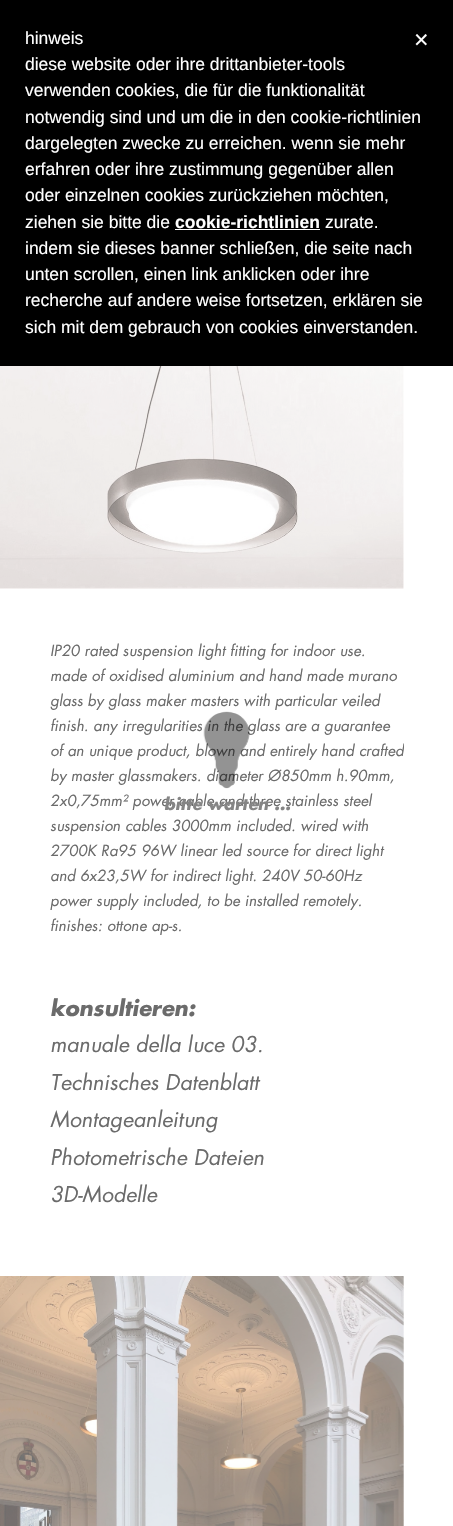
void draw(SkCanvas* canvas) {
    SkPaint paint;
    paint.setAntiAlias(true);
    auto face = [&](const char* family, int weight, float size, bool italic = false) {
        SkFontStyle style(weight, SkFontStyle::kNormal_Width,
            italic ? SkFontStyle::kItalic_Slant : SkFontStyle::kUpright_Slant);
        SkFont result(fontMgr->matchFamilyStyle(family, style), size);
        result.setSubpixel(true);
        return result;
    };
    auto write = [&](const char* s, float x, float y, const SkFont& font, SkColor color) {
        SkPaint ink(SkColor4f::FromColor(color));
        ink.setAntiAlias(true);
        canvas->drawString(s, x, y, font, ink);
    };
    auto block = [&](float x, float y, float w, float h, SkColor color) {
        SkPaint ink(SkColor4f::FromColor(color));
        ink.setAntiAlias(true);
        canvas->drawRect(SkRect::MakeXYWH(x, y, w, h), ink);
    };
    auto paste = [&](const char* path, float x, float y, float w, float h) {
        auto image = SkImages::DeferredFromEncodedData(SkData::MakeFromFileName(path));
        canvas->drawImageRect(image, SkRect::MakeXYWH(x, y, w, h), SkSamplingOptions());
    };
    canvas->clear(SK_ColorWHITE);
    block(0, 0, 453, 366, SK_ColorBLACK);
    auto kFont1 = face("Liberation Sans", 400, 17.5f);
    write("hinweis", 25, 44, kFont1, SK_ColorWHITE);
    write("diese website oder ihre drittanbieter-tools", 25, 70, kFont1, SK_ColorWHITE);
    write("verwenden cookies, die für die funktionalität", 25, 96, kFont1, SK_ColorWHITE);
    write("notwendig sind und um die in den cookie-richtlinien", 25, 123, kFont1, SK_ColorWHITE);
    write("dargelegten zwecke zu erreichen. wenn sie mehr", 25, 149, kFont1, SK_ColorWHITE);
    write("erfahren oder ihre zustimmung gegenüber allen", 25, 175, kFont1, SK_ColorWHITE);
    write("oder einzelnen cookies zurückziehen möchten,", 25, 201, kFont1, SK_ColorWHITE);
    write("ziehen sie bitte die", 25, 228, kFont1, SK_ColorWHITE);
    auto kFont2 = face("Liberation Sans", 700, 17.5f);
    write("cookie-richtlinien", 175, 228, kFont2, SK_ColorWHITE);
    block(175, 229, 145, 1, SK_ColorWHITE);
    write("zurate.", 325, 228, kFont1, SK_ColorWHITE);
    write("indem sie dieses banner schließen, die seite nach", 25, 254, kFont1, SK_ColorWHITE);
    write("unten scrollen, einen link anklicken oder ihre", 25, 280, kFont1, SK_ColorWHITE);
    write("recherche auf andere weise fortsetzen, erklären sie", 25, 306, kFont1, SK_ColorWHITE);
    write("sich mit dem gebrauch von cookies einverstanden.", 25, 333, kFont1, SK_ColorWHITE);
    auto kFont3 = face("Liberation Sans", 400, 25);
    write("×", 414, 48, kFont3, SK_ColorWHITE);
    paste("pic1.png", 0, 366, 404, 223);
    auto kFont4 = face("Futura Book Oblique", 400, 15);
    write("IP20 rated suspension light fitting for indoor use.", 50, 656, kFont4, SkColorSetRGB(107, 107, 107));
    write("made of oxidised aluminium and hand made murano", 50, 681, kFont4, SkColorSetRGB(107, 107, 107));
    write("glass by glass maker masters with particular veiled", 50, 706, kFont4, SkColorSetRGB(107, 107, 107));
    write("finish. any irregularities in the glass are a guarantee", 50, 731, kFont4, SkColorSetRGB(107, 107, 107));
    canvas->save();
    canvas->clipRect(SkRect::MakeXYWH(0, 639, 404, 300));
    write("of an unique product, blown and entirely hand crafted", 50, 756, kFont4, SkColorSetRGB(107, 107, 107));
    canvas->restore();
    write("by master glassmakers. diameter Ø850mm h.90mm,", 50, 781, kFont4, SkColorSetRGB(107, 107, 107));
    write("2x0,75mm² power cable and three stainless steel", 50, 806, kFont4, SkColorSetRGB(107, 107, 107));
    write("suspension cables 3000mm included. wired with", 50, 831, kFont4, SkColorSetRGB(107, 107, 107));
    write("2700K Ra95 96W linear led source for direct light", 50, 856, kFont4, SkColorSetRGB(107, 107, 107));
    write("and 6x23,5W for indirect light. 240V 50-60Hz", 50, 881, kFont4, SkColorSetRGB(107, 107, 107));
    write("power supply included, to be installed remotely.", 50, 906, kFont4, SkColorSetRGB(107, 107, 107));
    write("finishes: ottone ap-s.", 50, 931, kFont4, SkColorSetRGB(107, 107, 107));
    auto kFont5 = face("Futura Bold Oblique", 700, 21.25f);
    write("konsultieren:", 50, 1016, kFont5, SkColorSetRGB(107, 107, 107));
    auto kFont6 = face("Futura Book Oblique", 400, 21.25f);
    write("manuale della luce 03.", 50, 1052, kFont6, SkColorSetRGB(107, 107, 107));
    write("Technisches Datenblatt", 50, 1090, kFont6, SkColorSetRGB(107, 107, 107));
    write("Montageanleitung", 50, 1127, kFont6, SkColorSetRGB(107, 107, 107));
    write("Photometrische Dateien", 50, 1165, kFont6, SkColorSetRGB(107, 107, 107));
    write("3D-Modelle", 50, 1202, kFont6, SkColorSetRGB(107, 107, 107));
    paste("pic2.png", 0, 1276, 404, 250);
    paste("pic3.png", 203, 711, 47, 78);
    auto kFont7 = face("Futura Bold Oblique", 700, 16.25f);
    write("bitte warten ...", 164, 810, kFont7, SkColorSetRGB(133, 133, 133));
}
